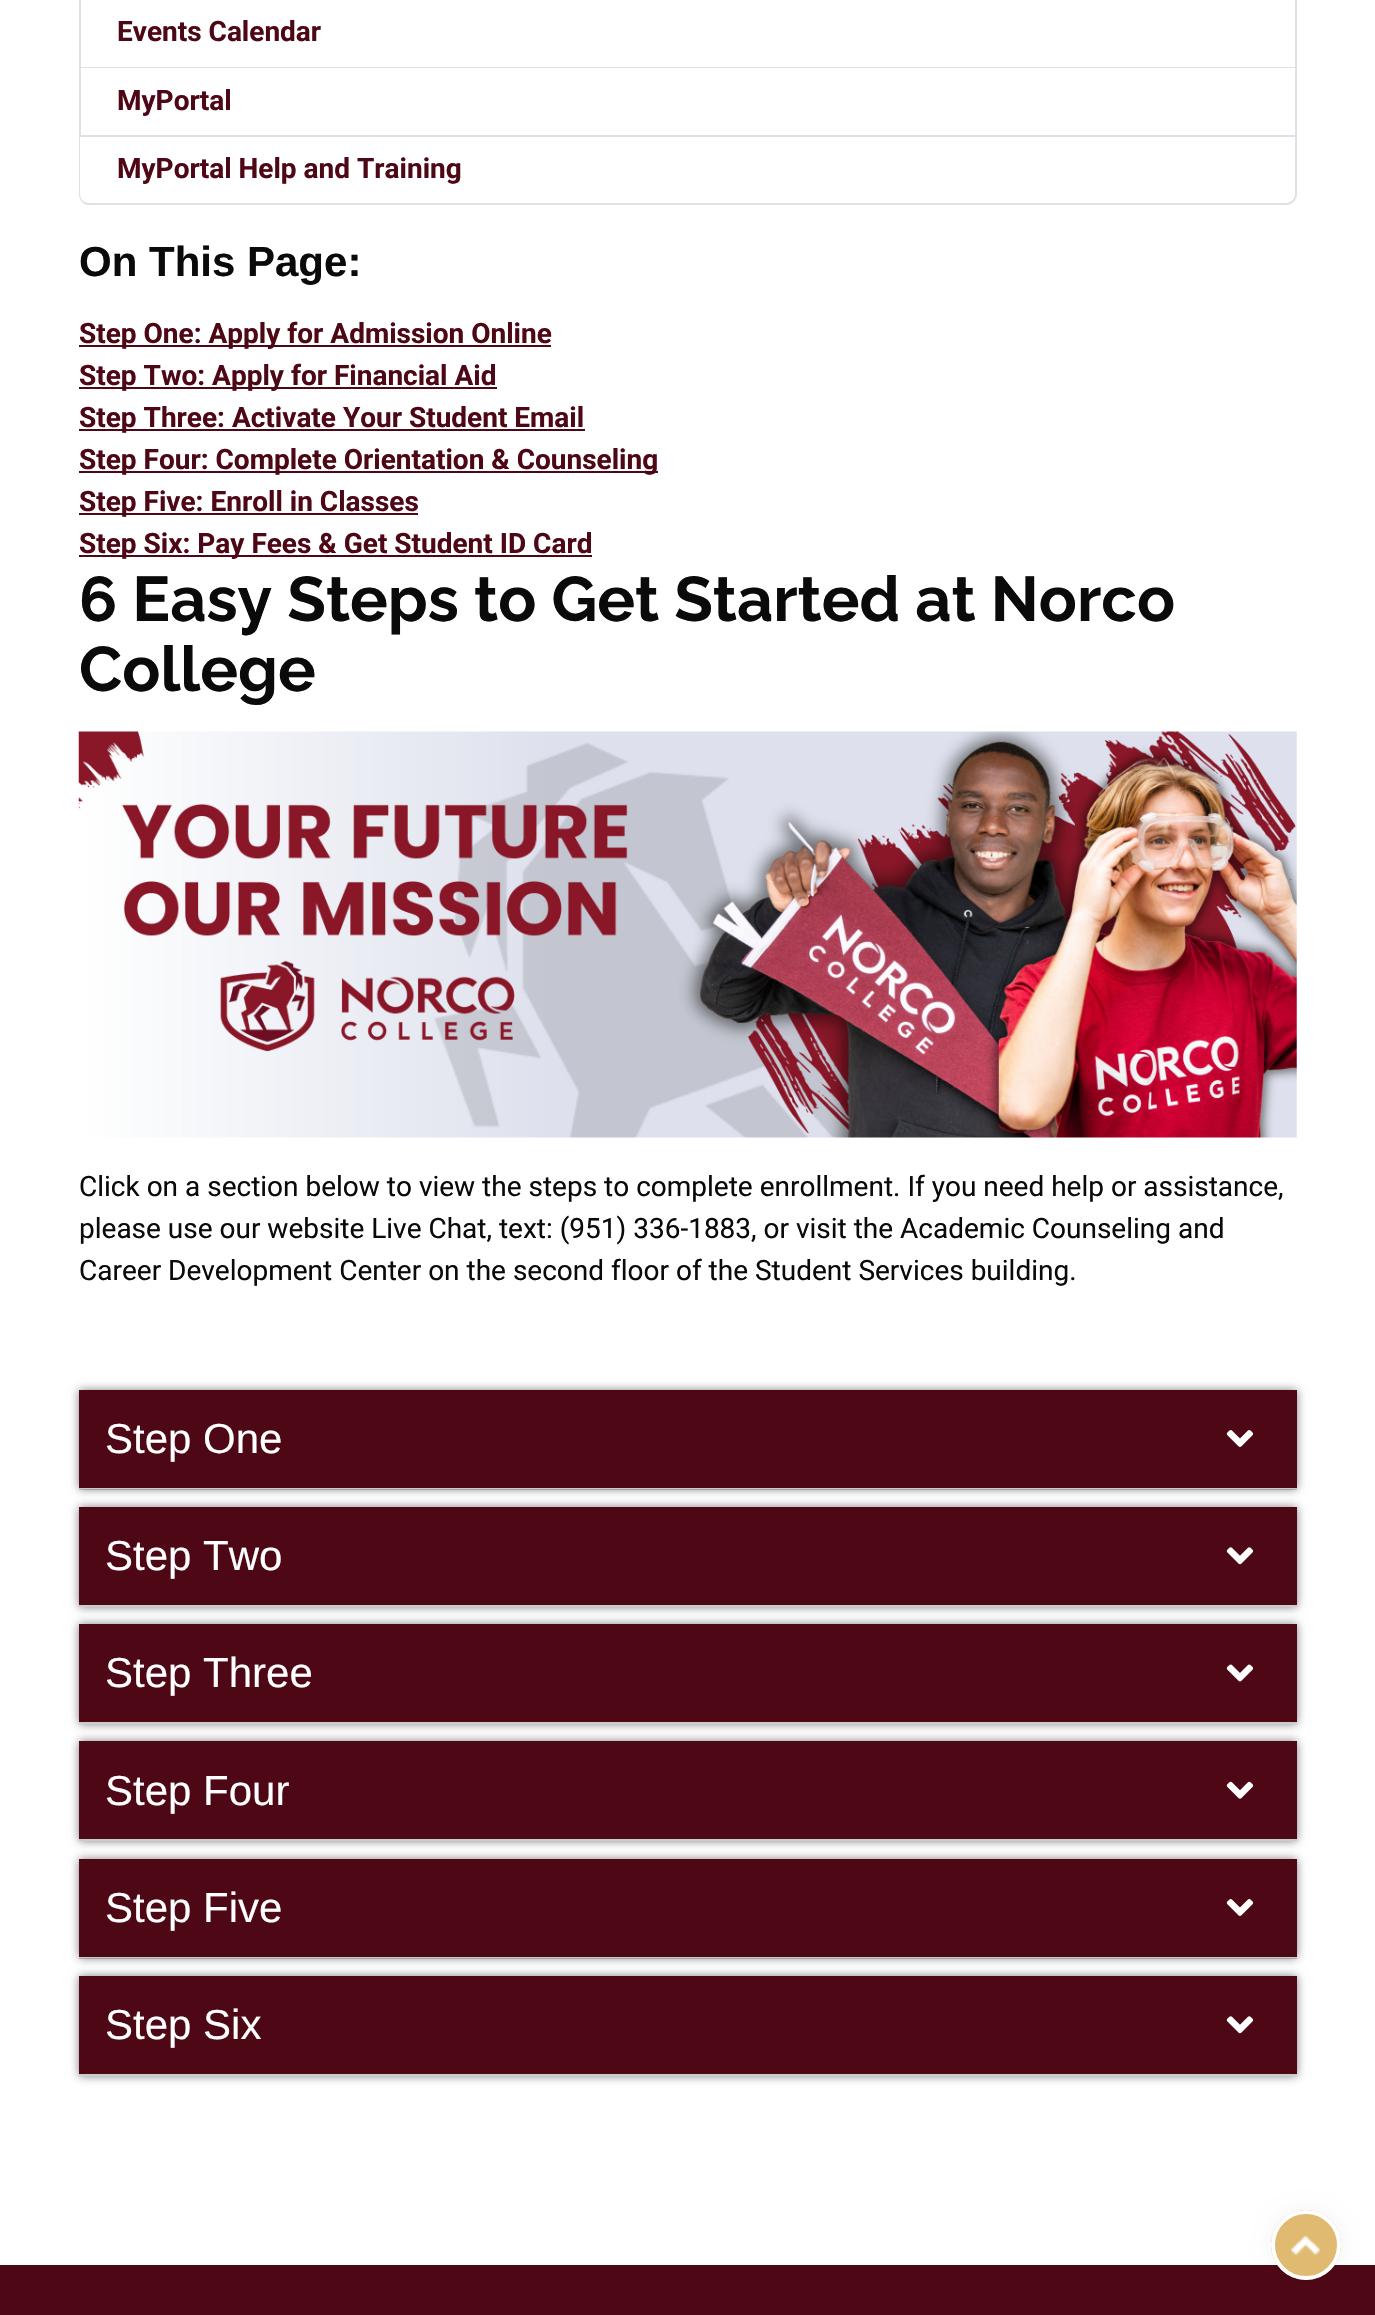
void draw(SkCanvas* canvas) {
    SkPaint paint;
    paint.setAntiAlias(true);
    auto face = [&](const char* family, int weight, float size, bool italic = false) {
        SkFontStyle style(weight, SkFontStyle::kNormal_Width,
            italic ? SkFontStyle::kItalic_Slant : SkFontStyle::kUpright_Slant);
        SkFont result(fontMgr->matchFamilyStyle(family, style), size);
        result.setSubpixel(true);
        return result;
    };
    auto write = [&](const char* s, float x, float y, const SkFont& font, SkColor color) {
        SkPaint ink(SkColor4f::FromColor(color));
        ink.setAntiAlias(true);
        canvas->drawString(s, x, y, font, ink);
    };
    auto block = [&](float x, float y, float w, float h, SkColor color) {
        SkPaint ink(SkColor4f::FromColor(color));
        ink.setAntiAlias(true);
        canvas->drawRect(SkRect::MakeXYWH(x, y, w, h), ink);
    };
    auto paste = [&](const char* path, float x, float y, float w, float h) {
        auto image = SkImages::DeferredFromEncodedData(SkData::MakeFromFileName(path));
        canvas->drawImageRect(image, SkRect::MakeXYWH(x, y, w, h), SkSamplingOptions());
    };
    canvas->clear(SK_ColorWHITE);
    block(1295, 0, 2, 137, SkColorSetRGB(222, 226, 230));
    block(79, 67, 1218, 1, SkColorSetRGB(222, 226, 230));
    block(79, 0, 2, 68, SkColorSetRGB(222, 226, 230));
    auto kFont1 = face("Roboto", 700, 28);
    write("Events Calendar", 117, 41, kFont1, SkColorSetRGB(78, 7, 21));
    block(79, 135, 1218, 2, SkColorSetRGB(222, 226, 230));
    block(79, 68, 2, 69, SkColorSetRGB(222, 226, 230));
    write("MyPortal", 117, 110, kFont1, SkColorSetRGB(78, 7, 21));
    paint.setColor(SkColorSetRGB(222, 226, 230));
    canvas->drawPath(SkPathBuilder(SkPathFillType::kEvenOdd).moveTo(79, 136).lineTo(1297, 136).lineTo(1297, 194).cubicTo(1297, 200, 1292, 205, 1286, 205).lineTo(89, 205).cubicTo(83, 205, 79, 200, 79, 194).close().moveTo(80, 136).lineTo(1295, 136).lineTo(1295, 194).cubicTo(1295, 199, 1291, 203, 1286, 203).lineTo(89, 203).cubicTo(84, 203, 80, 199, 80, 194).close().detach(), paint);
    write("MyPortal Help and Training", 117, 178, kFont1, SkColorSetRGB(78, 7, 21));
    auto kFont2 = face("Liberation Sans", 700, 42);
    write("On This Page:", 79, 276, kFont2, SkColorSetRGB(10, 10, 10));
    block(79, 345, 472, 2, SkColorSetRGB(78, 7, 21));
    write("Step One: Apply for Admission Online", 79, 343, kFont1, SkColorSetRGB(78, 7, 21));
    block(79, 387, 418, 2, SkColorSetRGB(78, 7, 21));
    write("Step Two: Apply for Financial Aid", 79, 385, kFont1, SkColorSetRGB(78, 7, 21));
    block(79, 429, 506, 2, SkColorSetRGB(78, 7, 21));
    write("Step Three: Activate Your Student Email", 79, 427, kFont1, SkColorSetRGB(78, 7, 21));
    block(79, 471, 579, 2, SkColorSetRGB(78, 7, 21));
    write("Step Four: Complete Orientation & Counseling", 79, 469, kFont1, SkColorSetRGB(78, 7, 21));
    block(79, 513, 339, 2, SkColorSetRGB(78, 7, 21));
    write("Step Five: Enroll in Classes", 79, 511, kFont1, SkColorSetRGB(78, 7, 21));
    block(79, 555, 513, 2, SkColorSetRGB(78, 7, 21));
    write("Step Six: Pay Fees & Get Student ID Card", 79, 553, kFont1, SkColorSetRGB(78, 7, 21));
    auto kFont3 = face("Raleway", 700, 63);
    write("6 Easy Steps to Get Started at Norco", 79, 621, kFont3, SkColorSetRGB(10, 10, 10));
    write("College", 79, 691, kFont3, SkColorSetRGB(10, 10, 10));
    paste("pic1.png", 78, 731, 1219, 407);
    auto kFont4 = face("Roboto", 400, 28);
    write("Click on a section below to view the steps to complete enrollment. If you need help or assistance,", 79, 1196, kFont4, SkColorSetRGB(10, 10, 10));
    write("please use our website Live Chat, text: (951) 336-1883, or visit the Academic Counseling and", 79, 1238, kFont4, SkColorSetRGB(10, 10, 10));
    write("Career Development Center on the second floor of the Student Services building.", 79, 1280, kFont4, SkColorSetRGB(10, 10, 10));
    paint.setColor(SkColorSetARGB(128, 0, 0, 0));
    paint.setMaskFilter(SkMaskFilter::MakeBlur(kNormal_SkBlurStyle, 4.5f));
    canvas->drawRect(SkRect::MakeXYWH(79, 1390, 1218, 99), paint);
    paint.setMaskFilter(nullptr);
    block(79, 1488, 1218, 1, SkColorSetRGB(248, 248, 248));
    block(79, 1488, 1218, 2, SkColorSetARGB(46, 0, 0, 0));
    block(79, 1390, 1218, 98, SkColorSetRGB(78, 7, 21));
    auto kFont5 = face("Liberation Sans", 400, 42);
    write("Step One", 105, 1453, kFont5, SK_ColorWHITE);
    paste("pic2.png", 1226, 1430, 28, 17);
    paint.setMaskFilter(SkMaskFilter::MakeBlur(kNormal_SkBlurStyle, 4.5f));
    canvas->drawRect(SkRect::MakeXYWH(79, 1507, 1218, 100), paint);
    paint.setMaskFilter(nullptr);
    block(79, 1605, 1218, 2, SkColorSetRGB(204, 204, 204));
    block(79, 1507, 1218, 98, SkColorSetRGB(78, 7, 21));
    write("Step Two", 105, 1570, kFont5, SK_ColorWHITE);
    paste("pic3.png", 1226, 1547, 28, 18);
    paint.setMaskFilter(SkMaskFilter::MakeBlur(kNormal_SkBlurStyle, 4.5f));
    canvas->drawRect(SkRect::MakeXYWH(79, 1624, 1218, 100), paint);
    paint.setMaskFilter(nullptr);
    block(79, 1722, 1218, 2, SkColorSetRGB(204, 204, 204));
    block(79, 1624, 1218, 98, SkColorSetRGB(78, 7, 21));
    write("Step Three", 105, 1687, kFont5, SK_ColorWHITE);
    paste("pic4.png", 1226, 1664, 28, 18);
    paint.setMaskFilter(SkMaskFilter::MakeBlur(kNormal_SkBlurStyle, 4.5f));
    canvas->drawRect(SkRect::MakeXYWH(79, 1741, 1218, 100), paint);
    paint.setMaskFilter(nullptr);
    block(79, 1839, 1218, 2, SkColorSetRGB(204, 204, 204));
    block(79, 1741, 1218, 98, SkColorSetRGB(78, 7, 21));
    write("Step Four", 105, 1805, kFont5, SK_ColorWHITE);
    paste("pic5.png", 1226, 1781, 28, 18);
    paint.setMaskFilter(SkMaskFilter::MakeBlur(kNormal_SkBlurStyle, 4.5f));
    canvas->drawRect(SkRect::MakeXYWH(79, 1859, 1218, 99), paint);
    paint.setMaskFilter(nullptr);
    block(79, 1957, 1218, 1, SkColorSetRGB(248, 248, 248));
    block(79, 1957, 1218, 2, SkColorSetARGB(46, 0, 0, 0));
    block(79, 1859, 1218, 98, SkColorSetRGB(78, 7, 21));
    write("Step Five", 105, 1922, kFont5, SK_ColorWHITE);
    paste("pic2.png", 1226, 1899, 28, 17);
    paint.setMaskFilter(SkMaskFilter::MakeBlur(kNormal_SkBlurStyle, 4.5f));
    canvas->drawRect(SkRect::MakeXYWH(79, 1976, 1218, 100), paint);
    paint.setMaskFilter(nullptr);
    block(79, 2074, 1218, 2, SkColorSetRGB(204, 204, 204));
    block(79, 1976, 1218, 98, SkColorSetRGB(78, 7, 21));
    write("Step Six", 105, 2039, kFont5, SK_ColorWHITE);
    paste("pic3.png", 1226, 2016, 28, 18);
    block(0, 2265, 1375, 50, SkColorSetRGB(78, 7, 21));
    paint.setColor(SkColorSetARGB(13, 0, 0, 0));
    paint.setMaskFilter(SkMaskFilter::MakeBlur(kNormal_SkBlurStyle, 9));
    canvas->drawRoundRect(SkRect::MakeXYWH(1271, 2210, 70, 70), 35, 35, paint);
    paint.setMaskFilter(nullptr);
    paint.setColor(SkColorSetRGB(224, 186, 113));
    canvas->drawCircle(1306, 2245, 35, paint);
    paste("pic6.png", 1291, 2235, 29, 21);
    paint.setStyle(SkPaint::kStroke_Style);
    paint.setStrokeWidth(4);
    paint.setColor(SK_ColorWHITE);
    canvas->drawCircle(1306, 2245, 33, paint);
}
